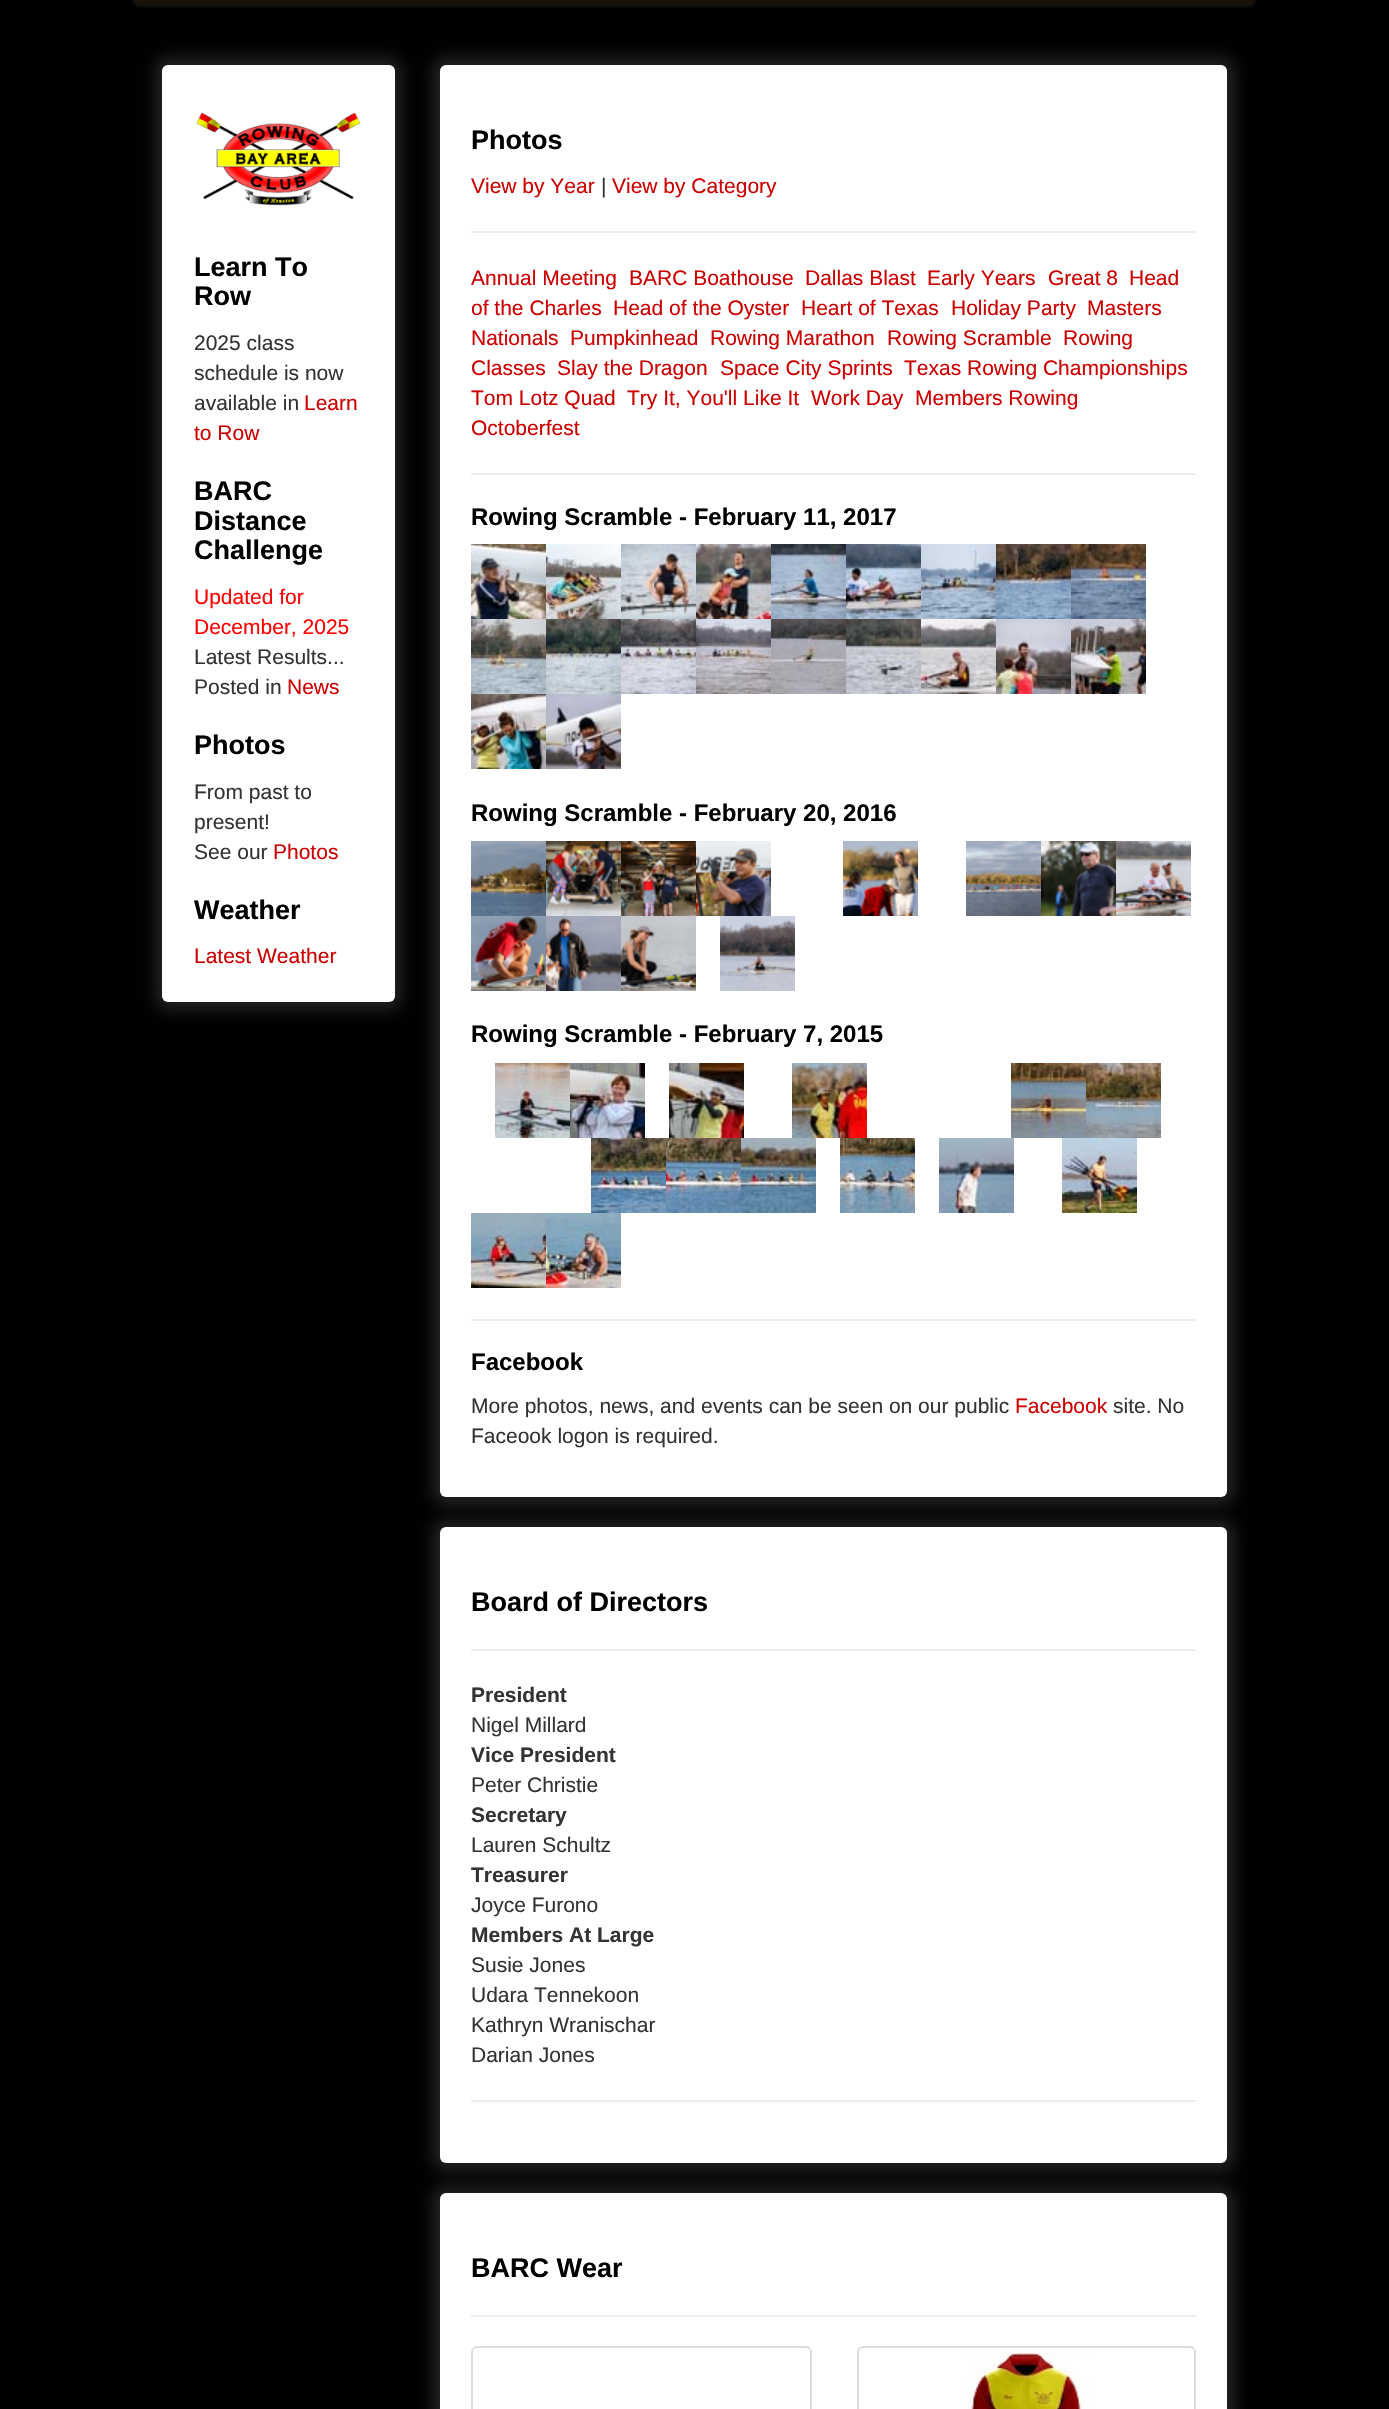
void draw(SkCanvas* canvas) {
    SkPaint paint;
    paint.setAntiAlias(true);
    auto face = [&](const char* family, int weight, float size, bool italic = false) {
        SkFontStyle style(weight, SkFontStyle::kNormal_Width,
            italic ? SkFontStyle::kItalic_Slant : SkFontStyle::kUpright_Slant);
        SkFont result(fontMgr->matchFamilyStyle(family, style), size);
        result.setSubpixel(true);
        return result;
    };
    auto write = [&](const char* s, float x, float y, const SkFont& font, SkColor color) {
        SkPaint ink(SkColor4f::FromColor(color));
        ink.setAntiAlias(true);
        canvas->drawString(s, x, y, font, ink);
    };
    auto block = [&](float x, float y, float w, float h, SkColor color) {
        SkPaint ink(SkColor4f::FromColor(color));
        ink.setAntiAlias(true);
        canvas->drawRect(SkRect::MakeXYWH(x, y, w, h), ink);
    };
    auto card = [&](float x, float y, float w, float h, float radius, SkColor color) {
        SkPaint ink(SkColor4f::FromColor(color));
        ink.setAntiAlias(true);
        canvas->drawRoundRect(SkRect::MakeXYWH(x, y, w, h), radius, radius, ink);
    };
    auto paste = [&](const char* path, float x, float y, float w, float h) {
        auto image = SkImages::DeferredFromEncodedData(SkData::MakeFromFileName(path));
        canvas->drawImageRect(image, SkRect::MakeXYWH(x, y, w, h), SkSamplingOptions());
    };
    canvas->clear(SK_ColorBLACK);
    paint.setColor(SkColorSetRGB(25, 18, 10));
    canvas->drawRoundRect(SkRect::MakeXYWH(133, -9, 1123, 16), 7, 7, paint);
    paint.setStyle(SkPaint::kStroke_Style);
    paint.setStrokeWidth(2);
    paint.setColor(SkColorSetRGB(8, 8, 8));
    canvas->drawRoundRect(SkRect::MakeXYWH(133, -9, 1123, 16), 7, 7, paint);
    paint.setStyle(SkPaint::kFill_Style);
    paint.setColor(SkColorSetRGB(34, 34, 34));
    paint.setMaskFilter(SkMaskFilter::MakeBlur(kNormal_SkBlurStyle, 7.5f));
    canvas->drawRoundRect(SkRect::MakeXYWH(155, 57, 247, 953), 14, 14, paint);
    paint.setMaskFilter(nullptr);
    card(162, 65, 233, 937, 6, SK_ColorWHITE);
    paste("pic1.png", 196, 112, 165, 94);
    auto kFont1 = face("Liberation Sans", 700, 27);
    write("Learn To", 194, 276, kFont1, SK_ColorBLACK);
    write("Row", 194, 305, kFont1, SK_ColorBLACK);
    auto kFont2 = face("Liberation Sans", 400, 21);
    write("2025 class", 194, 350, kFont2, SkColorSetRGB(51, 51, 51));
    write("schedule is now", 194, 380, kFont2, SkColorSetRGB(51, 51, 51));
    write("available in", 194, 410, kFont2, SkColorSetRGB(51, 51, 51));
    write("Learn", 304, 410, kFont2, SkColorSetRGB(204, 0, 0));
    write("to Row", 194, 440, kFont2, SkColorSetRGB(204, 0, 0));
    write("BARC", 194, 500, kFont1, SK_ColorBLACK);
    write("Distance", 194, 530, kFont1, SK_ColorBLACK);
    write("Challenge", 194, 559, kFont1, SK_ColorBLACK);
    write("Updated for", 194, 604, kFont2, SkColorSetRGB(255, 0, 0));
    write("December, 2025", 194, 634, kFont2, SkColorSetRGB(255, 0, 0));
    write("Latest Results...", 194, 664, kFont2, SkColorSetRGB(51, 51, 51));
    write("Posted in", 194, 694, kFont2, SkColorSetRGB(51, 51, 51));
    write("News", 287, 694, kFont2, SkColorSetRGB(204, 0, 0));
    write("Photos", 194, 754, kFont1, SK_ColorBLACK);
    write("From past to", 194, 799, kFont2, SkColorSetRGB(51, 51, 51));
    write("present!", 194, 829, kFont2, SkColorSetRGB(51, 51, 51));
    write("See our", 194, 859, kFont2, SkColorSetRGB(51, 51, 51));
    write("Photos", 273, 859, kFont2, SkColorSetRGB(204, 0, 0));
    write("Weather", 194, 919, kFont1, SK_ColorBLACK);
    write("Latest Weather", 194, 963, kFont2, SkColorSetRGB(204, 0, 0));
    paint.setMaskFilter(SkMaskFilter::MakeBlur(kNormal_SkBlurStyle, 7.5f));
    canvas->drawRoundRect(SkRect::MakeXYWH(432, 57, 803, 1448), 14, 14, paint);
    paint.setMaskFilter(nullptr);
    card(440, 65, 787, 1432, 6, SK_ColorWHITE);
    write("Photos", 471, 149, kFont1, SK_ColorBLACK);
    write("View by Year", 471, 193, kFont2, SkColorSetRGB(204, 0, 0));
    write("|", 601, 193, kFont2, SkColorSetRGB(51, 51, 51));
    write("View by Category", 612, 193, kFont2, SkColorSetRGB(204, 0, 0));
    block(471, 231, 725, 2, SkColorSetRGB(238, 238, 238));
    write("Annual Meeting", 471, 285, kFont2, SkColorSetRGB(204, 0, 0));
    write("BARC Boathouse", 629, 285, kFont2, SkColorSetRGB(204, 0, 0));
    write("Dallas Blast", 805, 285, kFont2, SkColorSetRGB(204, 0, 0));
    write("Early Years", 927, 285, kFont2, SkColorSetRGB(204, 0, 0));
    write("Great 8", 1048, 285, kFont2, SkColorSetRGB(204, 0, 0));
    write("Head", 1129, 285, kFont2, SkColorSetRGB(204, 0, 0));
    write("of the Charles", 471, 315, kFont2, SkColorSetRGB(204, 0, 0));
    write("Head of the Oyster", 613, 315, kFont2, SkColorSetRGB(204, 0, 0));
    write("Heart of Texas", 801, 315, kFont2, SkColorSetRGB(204, 0, 0));
    write("Holiday Party", 951, 315, kFont2, SkColorSetRGB(204, 0, 0));
    write("Masters", 1087, 315, kFont2, SkColorSetRGB(204, 0, 0));
    write("Nationals", 471, 345, kFont2, SkColorSetRGB(204, 0, 0));
    write("Pumpkinhead", 570, 345, kFont2, SkColorSetRGB(204, 0, 0));
    write("Rowing Marathon", 710, 345, kFont2, SkColorSetRGB(204, 0, 0));
    write("Rowing Scramble", 887, 345, kFont2, SkColorSetRGB(204, 0, 0));
    write("Rowing", 1063, 345, kFont2, SkColorSetRGB(204, 0, 0));
    write("Classes", 471, 375, kFont2, SkColorSetRGB(204, 0, 0));
    write("Slay the Dragon", 557, 375, kFont2, SkColorSetRGB(204, 0, 0));
    write("Space City Sprints", 720, 375, kFont2, SkColorSetRGB(204, 0, 0));
    write("Texas Rowing Championships", 904, 375, kFont2, SkColorSetRGB(204, 0, 0));
    write("Tom Lotz Quad", 471, 405, kFont2, SkColorSetRGB(204, 0, 0));
    write("Try It, You'll Like It", 627, 405, kFont2, SkColorSetRGB(204, 0, 0));
    write("Work Day", 811, 405, kFont2, SkColorSetRGB(204, 0, 0));
    write("Members Rowing", 915, 405, kFont2, SkColorSetRGB(204, 0, 0));
    write("Octoberfest", 471, 435, kFont2, SkColorSetRGB(204, 0, 0));
    block(471, 473, 725, 2, SkColorSetRGB(238, 238, 238));
    auto kFont3 = face("Liberation Sans", 700, 24);
    write("Rowing Scramble - February 11, 2017", 471, 525, kFont3, SK_ColorBLACK);
    paste("pic2.png", 471, 544, 75, 75);
    paste("pic3.png", 546, 544, 75, 75);
    paste("pic4.png", 621, 544, 75, 75);
    paste("pic5.png", 696, 544, 75, 75);
    paste("pic6.png", 771, 544, 75, 75);
    paste("pic7.png", 846, 544, 75, 75);
    paste("pic8.png", 921, 544, 75, 75);
    paste("pic9.png", 996, 544, 75, 75);
    paste("pic10.png", 1071, 544, 75, 75);
    paste("pic11.png", 471, 619, 75, 75);
    paste("pic12.png", 546, 619, 75, 75);
    paste("pic13.png", 621, 619, 75, 75);
    paste("pic14.png", 696, 619, 75, 75);
    paste("pic15.png", 771, 619, 75, 75);
    paste("pic16.png", 846, 619, 75, 75);
    paste("pic17.png", 921, 619, 75, 75);
    paste("pic18.png", 996, 619, 75, 75);
    paste("pic19.png", 1071, 619, 75, 75);
    paste("pic20.png", 471, 694, 75, 75);
    paste("pic21.png", 546, 694, 75, 75);
    write("Rowing Scramble - February 20, 2016", 471, 821, kFont3, SK_ColorBLACK);
    paste("pic22.png", 471, 841, 75, 75);
    paste("pic23.png", 546, 841, 75, 75);
    paste("pic24.png", 621, 841, 75, 75);
    paste("pic25.png", 696, 841, 75, 75);
    paste("pic26.png", 843, 841, 75, 75);
    paste("pic27.png", 966, 841, 75, 75);
    paste("pic28.png", 1041, 841, 75, 75);
    paste("pic29.png", 1116, 841, 75, 75);
    paste("pic30.png", 471, 916, 75, 75);
    paste("pic31.png", 546, 916, 75, 75);
    paste("pic32.png", 621, 916, 75, 75);
    paste("pic33.png", 720, 916, 75, 75);
    write("Rowing Scramble - February 7, 2015", 471, 1042, kFont3, SK_ColorBLACK);
    paste("pic34.png", 495, 1063, 75, 75);
    paste("pic35.png", 570, 1063, 75, 75);
    paste("pic36.png", 669, 1063, 75, 75);
    paste("pic37.png", 792, 1063, 75, 75);
    paste("pic38.png", 1011, 1063, 75, 75);
    paste("pic39.png", 1086, 1063, 75, 75);
    paste("pic40.png", 591, 1138, 75, 75);
    paste("pic41.png", 666, 1138, 75, 75);
    paste("pic42.png", 741, 1138, 75, 75);
    paste("pic43.png", 840, 1138, 75, 75);
    paste("pic44.png", 939, 1138, 75, 75);
    paste("pic45.png", 1062, 1138, 75, 75);
    paste("pic46.png", 471, 1213, 75, 75);
    paste("pic47.png", 546, 1213, 75, 75);
    block(471, 1319, 725, 2, SkColorSetRGB(238, 238, 238));
    write("Facebook", 471, 1370, kFont3, SK_ColorBLACK);
    write("More photos, news, and events can be seen on our public", 471, 1413, kFont2, SkColorSetRGB(51, 51, 51));
    write("Facebook", 1015, 1413, kFont2, SkColorSetRGB(204, 0, 0));
    write("site. No", 1113, 1413, kFont2, SkColorSetRGB(51, 51, 51));
    write("Faceook logon is required.", 471, 1443, kFont2, SkColorSetRGB(51, 51, 51));
    paint.setMaskFilter(SkMaskFilter::MakeBlur(kNormal_SkBlurStyle, 7.5f));
    canvas->drawRoundRect(SkRect::MakeXYWH(432, 1520, 803, 651), 14, 14, paint);
    paint.setMaskFilter(nullptr);
    card(440, 1527, 787, 636, 6, SK_ColorWHITE);
    write("Board of Directors", 471, 1611, kFont1, SK_ColorBLACK);
    block(471, 1649, 725, 2, SkColorSetRGB(238, 238, 238));
    auto kFont4 = face("Liberation Sans", 700, 21);
    write("President", 471, 1702, kFont4, SkColorSetRGB(51, 51, 51));
    write("Nigel Millard", 471, 1732, kFont2, SkColorSetRGB(51, 51, 51));
    write("Vice President", 471, 1762, kFont4, SkColorSetRGB(51, 51, 51));
    write("Peter Christie", 471, 1792, kFont2, SkColorSetRGB(51, 51, 51));
    write("Secretary", 471, 1822, kFont4, SkColorSetRGB(51, 51, 51));
    write("Lauren Schultz", 471, 1852, kFont2, SkColorSetRGB(51, 51, 51));
    write("Treasurer", 471, 1882, kFont4, SkColorSetRGB(51, 51, 51));
    write("Joyce Furono", 471, 1912, kFont2, SkColorSetRGB(51, 51, 51));
    write("Members At Large", 471, 1942, kFont4, SkColorSetRGB(51, 51, 51));
    write("Susie Jones", 471, 1972, kFont2, SkColorSetRGB(51, 51, 51));
    write("Udara Tennekoon", 471, 2002, kFont2, SkColorSetRGB(51, 51, 51));
    write("Kathryn Wranischar", 471, 2032, kFont2, SkColorSetRGB(51, 51, 51));
    write("Darian Jones", 471, 2062, kFont2, SkColorSetRGB(51, 51, 51));
    block(471, 2100, 725, 2, SkColorSetRGB(238, 238, 238));
    paint.setMaskFilter(SkMaskFilter::MakeBlur(kNormal_SkBlurStyle, 7.5f));
    canvas->drawRoundRect(SkRect::MakeXYWH(432, 2186, 803, 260), 14, 14, paint);
    paint.setMaskFilter(nullptr);
    card(440, 2193, 787, 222, 6, SK_ColorWHITE);
    write("BARC Wear", 471, 2277, kFont1, SK_ColorBLACK);
    block(471, 2315, 725, 2, SkColorSetRGB(238, 238, 238));
    paint.setStyle(SkPaint::kStroke_Style);
    paint.setColor(SkColorSetRGB(221, 221, 221));
    canvas->drawRoundRect(SkRect::MakeXYWH(472, 2347, 339, 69), 5, 5, paint);
    canvas->drawRoundRect(SkRect::MakeXYWH(858, 2347, 337, 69), 5, 5, paint);
    paste("pic48.png", 966, 2353, 125, 56);
}
